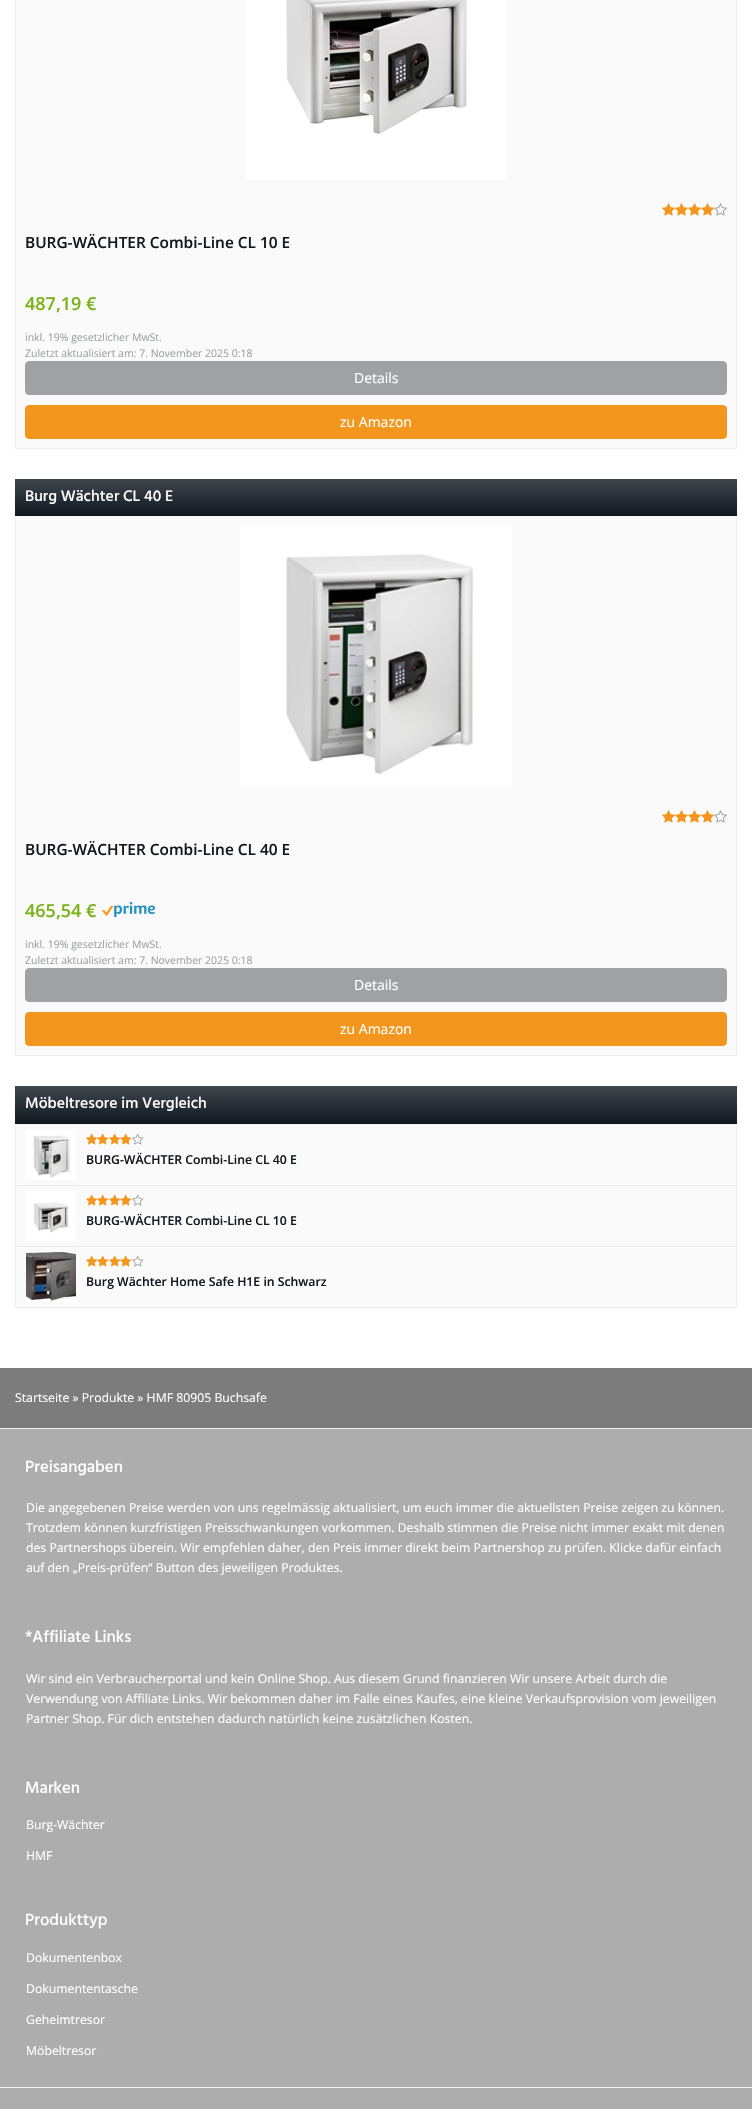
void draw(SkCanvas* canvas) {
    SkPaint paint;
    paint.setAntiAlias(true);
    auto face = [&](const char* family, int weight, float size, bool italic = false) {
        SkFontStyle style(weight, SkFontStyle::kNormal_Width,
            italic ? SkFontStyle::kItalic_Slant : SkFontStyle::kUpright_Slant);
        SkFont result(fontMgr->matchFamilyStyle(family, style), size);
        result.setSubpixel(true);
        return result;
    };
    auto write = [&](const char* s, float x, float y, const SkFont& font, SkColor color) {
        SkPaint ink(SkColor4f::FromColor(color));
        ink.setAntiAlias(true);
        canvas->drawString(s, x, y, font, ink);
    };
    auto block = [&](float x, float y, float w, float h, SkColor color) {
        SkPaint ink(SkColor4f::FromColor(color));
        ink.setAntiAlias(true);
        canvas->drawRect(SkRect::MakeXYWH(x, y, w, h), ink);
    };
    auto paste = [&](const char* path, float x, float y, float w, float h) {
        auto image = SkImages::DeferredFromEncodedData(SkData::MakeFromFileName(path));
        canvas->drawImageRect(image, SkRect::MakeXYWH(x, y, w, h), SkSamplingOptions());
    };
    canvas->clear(SK_ColorWHITE);
    paint.setColor(SkColorSetRGB(250, 250, 250));
    canvas->drawRect(SkRect::MakeXYWH(15.5f, -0.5f, 721, 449), paint);
    paint.setStyle(SkPaint::kStroke_Style);
    paint.setStrokeWidth(1);
    paint.setColor(SkColorSetRGB(238, 238, 238));
    canvas->drawRect(SkRect::MakeXYWH(15.5f, -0.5f, 721, 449), paint);
    paste("pic1.png", 245, 0, 262, 180);
    paste("pic2.png", 662, 203, 13, 13);
    paste("pic2.png", 675, 203, 13, 13);
    paste("pic2.png", 688, 203, 13, 13);
    paste("pic2.png", 701, 203, 13, 13);
    paste("pic3.png", 714, 203, 13, 13);
    auto kFont1 = face("Open Sans", 600, 15.4f);
    write("BURG-WÄCHTER Combi-Line CL 10 E", 25, 248, kFont1, SkColorSetRGB(16, 24, 32));
    auto kFont2 = face("Open Sans", 600, 18);
    write("487,19 €", 25, 310, kFont2, SkColorSetRGB(122, 179, 23));
    auto kFont3 = face("Open Sans", 400, 10.5f);
    write("inkl. 19% gesetzlicher MwSt.", 25, 341, kFont3, SkColorSetRGB(159, 162, 165));
    write("Zuletzt aktualisiert am: 7. November 2025 0:18", 25, 357, kFont3, SkColorSetRGB(159, 162, 165));
    paint.setStyle(SkPaint::kFill_Style);
    paint.setColor(SkColorSetRGB(159, 162, 165));
    canvas->drawRoundRect(SkRect::MakeXYWH(25.5f, 361.5f, 701, 33), 3.5f, 3.5f, paint);
    paint.setStyle(SkPaint::kStroke_Style);
    canvas->drawRoundRect(SkRect::MakeXYWH(25.5f, 361.5f, 701, 33), 3.5f, 3.5f, paint);
    auto kFont4 = face("Open Sans", 400, 14);
    write("Details", 354, 383, kFont4, SK_ColorWHITE);
    paint.setStyle(SkPaint::kFill_Style);
    paint.setColor(SkColorSetRGB(243, 150, 29));
    canvas->drawRoundRect(SkRect::MakeXYWH(25.5f, 405.5f, 701, 33), 3.5f, 3.5f, paint);
    paint.setStyle(SkPaint::kStroke_Style);
    canvas->drawRoundRect(SkRect::MakeXYWH(25.5f, 405.5f, 701, 33), 3.5f, 3.5f, paint);
    write("zu Amazon", 340, 427, kFont4, SK_ColorWHITE);
    block(16, 516, 720, 539, SkColorSetRGB(250, 250, 250));
    paint.setColor(SkColorSetRGB(238, 238, 238));
    canvas->drawRect(SkRect::MakeXYWH(15.5f, 479.5f, 721, 576), paint);
    paint.setStyle(SkPaint::kFill_Style);
    {
        const SkColor colors[] = {SkColorSetRGB(63, 70, 76), SkColorSetRGB(16, 24, 32)};
        const float stops[] = {0, 1};
        const SkPoint ends[] = {{376, 479}, {376, 516}};
        paint.setShader(SkGradientShader::MakeLinear(ends, colors, stops, 2, SkTileMode::kClamp));
        paint.setAlpha(255);
    }
    canvas->drawRect(SkRect::MakeXYWH(15, 479, 722, 37), paint);
    auto kFont5 = face("Hind", 500, 15.75f);
    write("Burg Wächter CL 40 E", 25, 501, kFont5, SK_ColorWHITE);
    paste("pic4.png", 240, 525, 272, 262);
    paste("pic2.png", 662, 810, 13, 13);
    paste("pic2.png", 675, 810, 13, 13);
    paste("pic2.png", 688, 810, 13, 13);
    paste("pic2.png", 701, 810, 13, 13);
    paste("pic3.png", 714, 810, 13, 13);
    write("BURG-WÄCHTER Combi-Line CL 40 E", 25, 855, kFont1, SkColorSetRGB(16, 24, 32));
    write("465,54 €", 25, 917, kFont2, SkColorSetRGB(122, 179, 23));
    paste("pic5.png", 102, 902, 53, 15);
    write("inkl. 19% gesetzlicher MwSt.", 25, 948, kFont3, SkColorSetRGB(159, 162, 165));
    write("Zuletzt aktualisiert am: 7. November 2025 0:18", 25, 964, kFont3, SkColorSetRGB(159, 162, 165));
    paint.setShader(nullptr);
    paint.setColor(SkColorSetRGB(159, 162, 165));
    canvas->drawRoundRect(SkRect::MakeXYWH(25.5f, 968.5f, 701, 33), 3.5f, 3.5f, paint);
    paint.setStyle(SkPaint::kStroke_Style);
    canvas->drawRoundRect(SkRect::MakeXYWH(25.5f, 968.5f, 701, 33), 3.5f, 3.5f, paint);
    write("Details", 354, 990, kFont4, SK_ColorWHITE);
    paint.setStyle(SkPaint::kFill_Style);
    paint.setColor(SkColorSetRGB(243, 150, 29));
    canvas->drawRoundRect(SkRect::MakeXYWH(25.5f, 1012.5f, 701, 33), 3.5f, 3.5f, paint);
    paint.setStyle(SkPaint::kStroke_Style);
    canvas->drawRoundRect(SkRect::MakeXYWH(25.5f, 1012.5f, 701, 33), 3.5f, 3.5f, paint);
    write("zu Amazon", 340, 1034, kFont4, SK_ColorWHITE);
    block(16, 1125, 720, 182, SkColorSetRGB(250, 250, 250));
    paint.setColor(SkColorSetRGB(238, 238, 238));
    canvas->drawRect(SkRect::MakeXYWH(15.5f, 1086.5f, 721, 221), paint);
    paint.setStyle(SkPaint::kFill_Style);
    {
        const SkColor colors[] = {SkColorSetRGB(63, 70, 76), SkColorSetRGB(16, 24, 32)};
        const float stops[] = {0, 1};
        const SkPoint ends[] = {{376, 1086}, {376, 1124}};
        paint.setShader(SkGradientShader::MakeLinear(ends, colors, stops, 2, SkTileMode::kClamp));
        paint.setAlpha(255);
    }
    canvas->drawRect(SkRect::MakeXYWH(15, 1086, 722, 38), paint);
    write("Möbeltresore im Vergleich", 25, 1108, kFont5, SK_ColorWHITE);
    block(16, 1124, 720, 1, SkColorSetRGB(238, 238, 238));
    paste("pic6.png", 26, 1130, 50, 50);
    paste("pic7.png", 86, 1133, 12, 12);
    paste("pic8.png", 97, 1133, 12, 12);
    paste("pic7.png", 109, 1133, 12, 12);
    paste("pic8.png", 120, 1133, 12, 12);
    paste("pic9.png", 132, 1133, 12, 12);
    auto kFont6 = face("Open Sans", 600, 12.25f);
    write("BURG-WÄCHTER Combi-Line CL 40 E", 86, 1164, kFont6, SkColorSetRGB(16, 24, 32));
    block(16, 1185, 720, 1, SkColorSetRGB(238, 238, 238));
    paste("pic10.png", 26, 1191, 50, 50);
    paste("pic7.png", 86, 1194, 12, 12);
    paste("pic8.png", 97, 1194, 12, 12);
    paste("pic7.png", 109, 1194, 12, 12);
    paste("pic8.png", 120, 1194, 12, 12);
    paste("pic9.png", 132, 1194, 12, 12);
    write("BURG-WÄCHTER Combi-Line CL 10 E", 86, 1225, kFont6, SkColorSetRGB(16, 24, 32));
    block(16, 1246, 720, 1, SkColorSetRGB(238, 238, 238));
    paste("pic11.png", 26, 1252, 50, 50);
    paste("pic7.png", 86, 1255, 12, 12);
    paste("pic8.png", 97, 1255, 12, 12);
    paste("pic7.png", 109, 1255, 12, 12);
    paste("pic8.png", 120, 1255, 12, 12);
    paste("pic9.png", 132, 1255, 12, 12);
    write("Burg Wächter Home Safe H1E in Schwarz", 86, 1286, kFont6, SkColorSetRGB(16, 24, 32));
    block(0, 1368, 752, 60, SkColorSetRGB(124, 124, 124));
    auto kFont7 = face("Open Sans", 400, 12.25f);
    write("Startseite » Produkte » HMF 80905 Buchsafe", 15, 1402, kFont7, SK_ColorWHITE);
    block(0, 1429, 752, 658, SkColorSetRGB(173, 173, 173));
    block(0, 1428, 752, 1, SkColorSetRGB(240, 240, 240));
    auto kFont8 = face("Hind", 500, 16.75f);
    write("Preisangaben", 25, 1472, kFont8, SK_ColorWHITE);
    write("Die angegebenen Preise werden von uns regelmässig aktualisiert, um euch immer die aktuellsten Preise zeigen zu können.", 26, 1512, kFont7, SK_ColorWHITE);
    write("Trotzdem können kurzfristigen Preisschwankungen vorkommen. Deshalb stimmen die Preise nicht immer exakt mit denen", 26, 1532, kFont7, SK_ColorWHITE);
    write("des Partnershops überein. Wir empfehlen daher, den Preis immer direkt beim Partnershop zu prüfen. Klicke dafür einfach", 26, 1552, kFont7, SK_ColorWHITE);
    write("auf den „Preis-prüfen“ Button des jeweiligen Produktes.", 26, 1572, kFont7, SK_ColorWHITE);
    write("*Affiliate Links", 25, 1642, kFont8, SK_ColorWHITE);
    write("Wir sind ein Verbraucherportal und kein Online Shop. Aus diesem Grund finanzieren Wir unsere Arbeit durch die", 26, 1683, kFont7, SK_ColorWHITE);
    write("Verwendung von Affiliate Links. Wir bekommen daher im Falle eines Kaufes, eine kleine Verkaufsprovision vom jeweiligen", 26, 1703, kFont7, SK_ColorWHITE);
    write("Partner Shop. Für dich entstehen dadurch natürlich keine zusätzlichen Kosten.", 26, 1723, kFont7, SK_ColorWHITE);
    write("Marken", 25, 1793, kFont8, SK_ColorWHITE);
    write("Burg-Wächter", 26, 1829, kFont7, SK_ColorWHITE);
    write("HMF", 26, 1860, kFont7, SK_ColorWHITE);
    write("Produkttyp", 25, 1925, kFont8, SK_ColorWHITE);
    write("Dokumentenbox", 26, 1962, kFont7, SK_ColorWHITE);
    write("Dokumententasche", 26, 1993, kFont7, SK_ColorWHITE);
    write("Geheimtresor", 26, 2024, kFont7, SK_ColorWHITE);
    write("Möbeltresor", 26, 2055, kFont7, SK_ColorWHITE);
    block(0, 2088, 752, 21, SkColorSetRGB(173, 173, 173));
    block(0, 2087, 752, 1, SkColorSetRGB(240, 240, 240));
}
